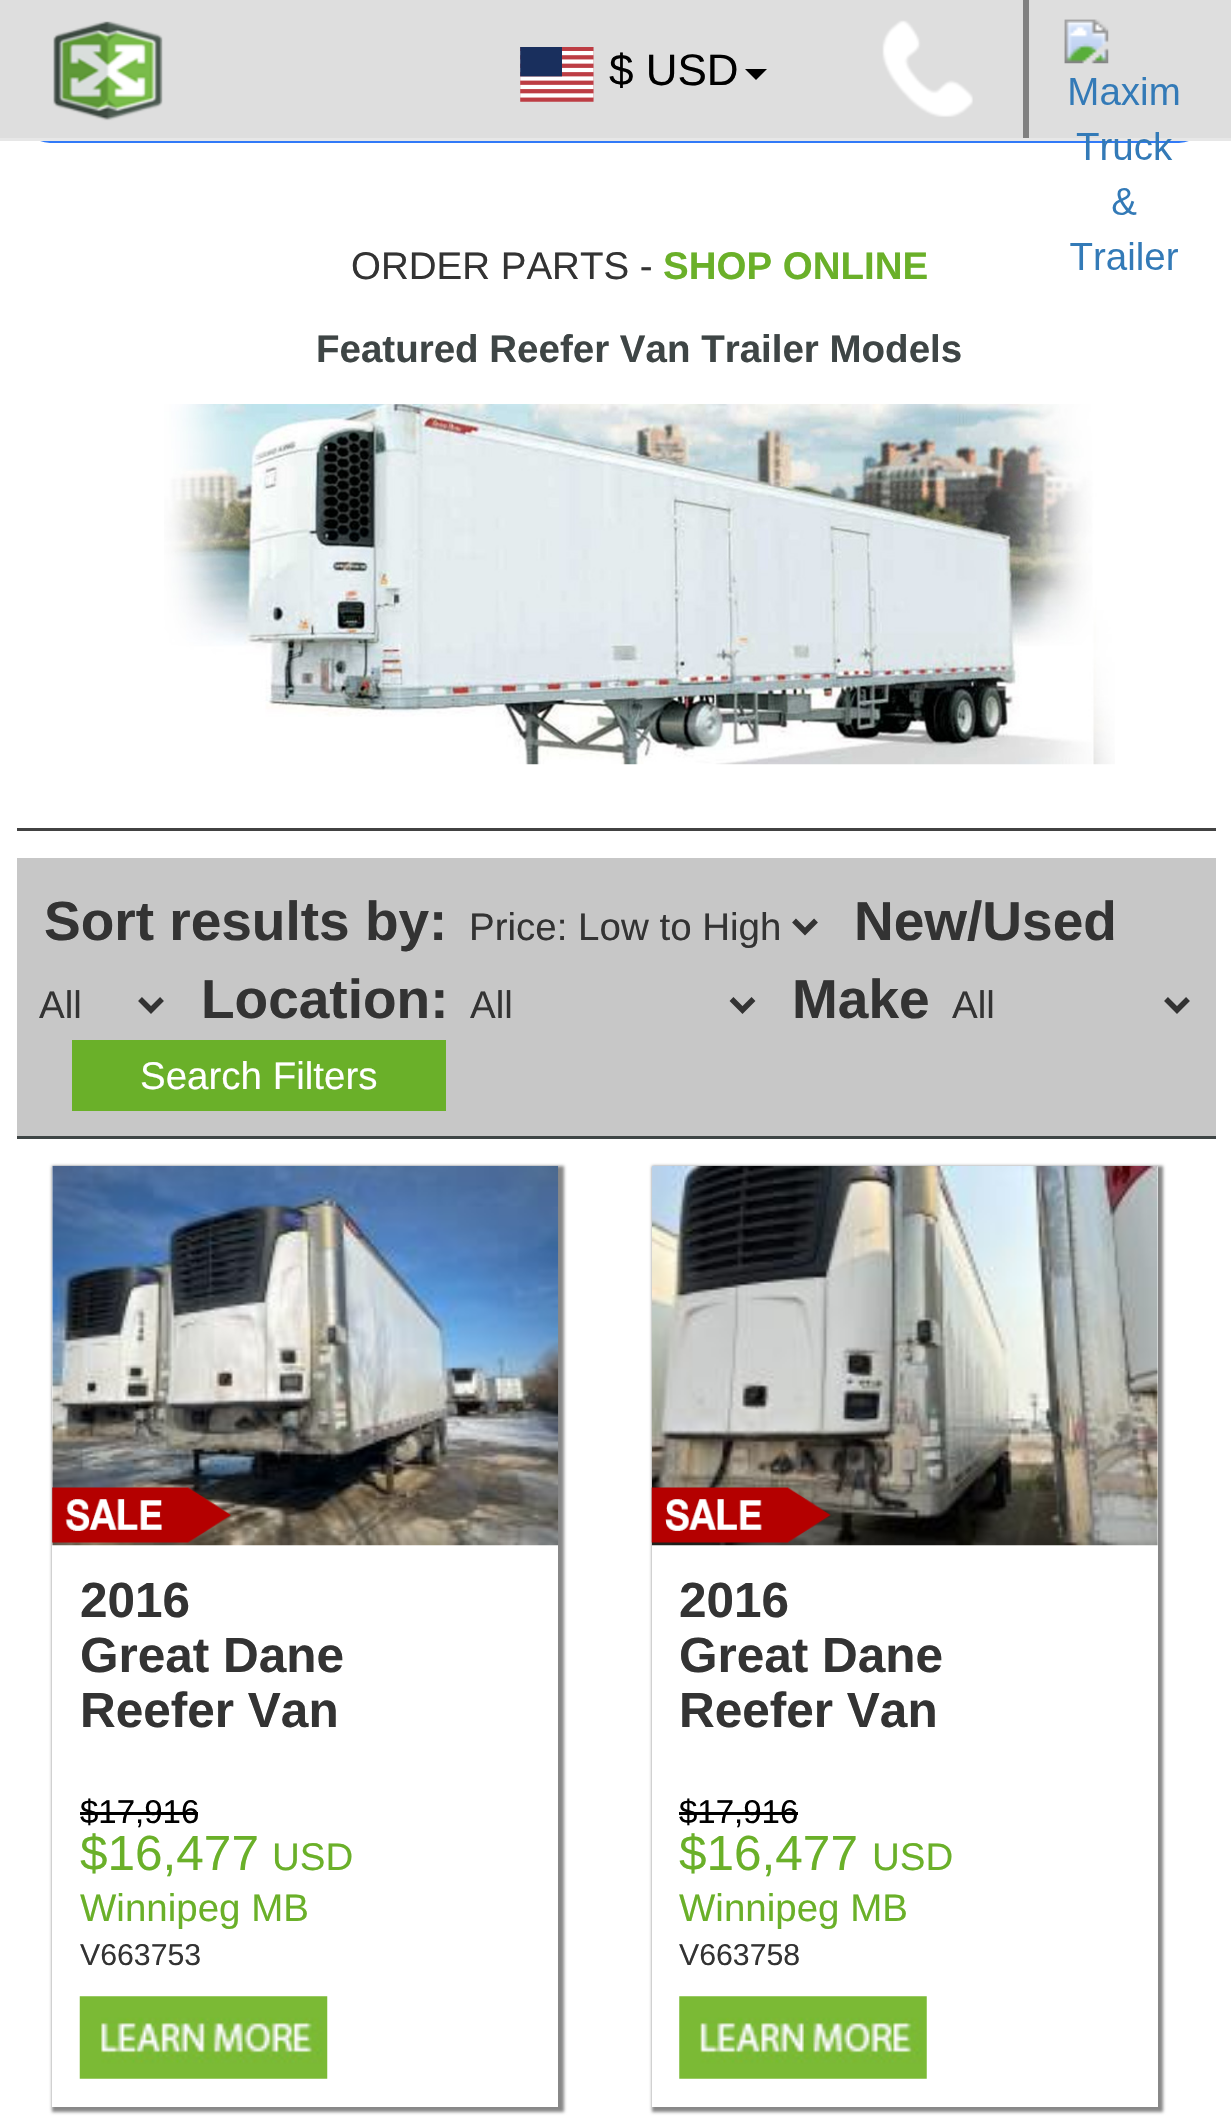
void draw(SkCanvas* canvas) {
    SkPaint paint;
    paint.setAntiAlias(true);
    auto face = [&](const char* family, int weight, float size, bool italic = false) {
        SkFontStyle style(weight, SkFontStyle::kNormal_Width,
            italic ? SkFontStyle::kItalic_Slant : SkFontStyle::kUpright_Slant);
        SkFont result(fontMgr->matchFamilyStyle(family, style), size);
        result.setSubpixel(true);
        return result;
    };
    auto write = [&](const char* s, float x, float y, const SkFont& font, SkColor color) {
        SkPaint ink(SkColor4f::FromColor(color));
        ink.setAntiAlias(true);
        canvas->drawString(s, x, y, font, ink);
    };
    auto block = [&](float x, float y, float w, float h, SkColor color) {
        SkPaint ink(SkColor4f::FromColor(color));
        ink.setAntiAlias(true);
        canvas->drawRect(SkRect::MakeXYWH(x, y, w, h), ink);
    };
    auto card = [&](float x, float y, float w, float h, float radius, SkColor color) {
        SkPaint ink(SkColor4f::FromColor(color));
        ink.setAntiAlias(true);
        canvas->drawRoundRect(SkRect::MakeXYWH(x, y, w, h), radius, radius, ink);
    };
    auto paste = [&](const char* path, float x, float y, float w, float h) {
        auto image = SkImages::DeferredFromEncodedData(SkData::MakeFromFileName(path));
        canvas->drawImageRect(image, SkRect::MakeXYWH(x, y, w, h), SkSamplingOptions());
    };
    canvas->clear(SK_ColorWHITE);
    card(22, -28, 1185, 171, 28, SkColorSetRGB(49, 122, 248));
    block(0, 138, 1231, 3, SkColorSetRGB(231, 231, 231));
    block(0, 0, 1231, 138, SkColorSetRGB(222, 222, 222));
    block(1023, 0, 6, 138, SkColorSetRGB(128, 128, 128));
    paste("pic1.png", 53, 21, 110, 100);
    paste("pic2.png", 520, 47, 74, 55);
    auto kFont1 = face("Liberation Sans", 400, 44);
    write("$ USD", 609, 85, kFont1, SK_ColorBLACK);
    paint.setColor(SK_ColorBLACK);
    canvas->drawPath(SkPathBuilder().moveTo(745, 69).lineTo(767, 69).lineTo(756, 80).close().detach(), paint);
    paste("pic3.png", 882, 20, 91, 97);
    paste("pic4.png", 1064, 19, 115, 251);
    auto kFont2 = face("Liberation Sans", 400, 38.5f);
    write("ORDER PARTS -", 351, 279, kFont2, SkColorSetRGB(51, 51, 51));
    auto kFont3 = face("Liberation Sans", 700, 38.5f);
    write("SHOP ONLINE", 663, 279, kFont3, SkColorSetRGB(106, 176, 41));
    write("Featured Reefer Van Trailer Models", 316, 362, kFont3, SkColorSetRGB(62, 69, 69));
    paste("pic5.png", 164, 404, 951, 361);
    block(17, 828, 1199, 3, SkColorSetRGB(66, 66, 66));
    block(17, 858, 1199, 278, SkColorSetRGB(199, 199, 199));
    block(17, 1136, 1199, 3, SkColorSetRGB(62, 69, 69));
    auto kFont4 = face("Liberation Sans", 700, 55);
    write("Sort results by:", 44, 940, kFont4, SkColorSetRGB(51, 51, 51));
    paint.setStyle(SkPaint::kStroke_Style);
    paint.setStrokeWidth(5.5f);
    paint.setColor(SkColorSetRGB(51, 51, 51));
    canvas->drawPath(SkPathBuilder().moveTo(794, 920.5f).lineTo(805, 931.5f).lineTo(816, 920.5f).detach(), paint);
    write("Price: Low to High", 469, 940, kFont2, SkColorSetRGB(51, 51, 51));
    write("New/Used", 854, 940, kFont4, SkColorSetRGB(51, 51, 51));
    canvas->drawPath(SkPathBuilder().moveTo(140, 999).lineTo(151, 1010).lineTo(162, 999).detach(), paint);
    write("All", 39, 1018, kFont2, SkColorSetRGB(51, 51, 51));
    write("Location:", 201, 1018, kFont4, SkColorSetRGB(51, 51, 51));
    canvas->drawPath(SkPathBuilder().moveTo(731.5f, 999).lineTo(742.5f, 1010).lineTo(753.5f, 999).detach(), paint);
    write("All", 470, 1018, kFont2, SkColorSetRGB(51, 51, 51));
    write("Make", 792, 1018, kFont4, SkColorSetRGB(51, 51, 51));
    canvas->drawPath(SkPathBuilder().moveTo(1166, 999).lineTo(1177, 1010).lineTo(1188, 999).detach(), paint);
    write("All", 952, 1018, kFont2, SkColorSetRGB(51, 51, 51));
    block(72, 1040, 374, 71, SkColorSetRGB(106, 176, 41));
    write("Search Filters", 140, 1089, kFont2, SK_ColorWHITE);
    paint.setStyle(SkPaint::kFill_Style);
    paint.setColor(SkColorSetRGB(136, 136, 136));
    paint.setMaskFilter(SkMaskFilter::MakeBlur(kNormal_SkBlurStyle, 1.5f));
    canvas->drawRect(SkRect::MakeXYWH(52, 1166, 512, 946), paint);
    paint.setMaskFilter(nullptr);
    block(52, 1166, 506, 941, SK_ColorWHITE);
    paste("pic6.png", 52, 1165, 507, 381);
    paste("pic7.png", 52, 1487, 179, 56);
    auto kFont5 = face("Liberation Sans", 700, 49.5f);
    write("2016", 80, 1617, kFont5, SkColorSetRGB(51, 51, 51));
    write("Great Dane", 80, 1672, kFont5, SkColorSetRGB(51, 51, 51));
    write("Reefer Van", 80, 1727, kFont5, SkColorSetRGB(51, 51, 51));
    auto kFont6 = face("Liberation Sans", 400, 33);
    write("$17,916", 80, 1823, kFont6, SK_ColorBLACK);
    block(80, 1812, 118, 3, SK_ColorBLACK);
    auto kFont7 = face("Liberation Sans", 400, 49.5f);
    write("$16,477", 80, 1870, kFont7, SkColorSetRGB(106, 176, 41));
    write("USD", 272, 1870, kFont2, SkColorSetRGB(106, 176, 41));
    write("Winnipeg MB", 80, 1921, kFont2, SkColorSetRGB(106, 176, 41));
    auto kFont8 = face("Liberation Sans", 400, 30.25f);
    write("V663753", 80, 1965, kFont8, SkColorSetRGB(51, 51, 51));
    paste("pic8.png", 79, 1996, 249, 83);
    paint.setMaskFilter(SkMaskFilter::MakeBlur(kNormal_SkBlurStyle, 1.5f));
    canvas->drawRect(SkRect::MakeXYWH(652, 1166, 511, 946), paint);
    paint.setMaskFilter(nullptr);
    block(652, 1166, 506, 941, SK_ColorWHITE);
    paste("pic9.png", 651, 1165, 507, 381);
    paste("pic10.png", 651, 1487, 180, 56);
    write("2016", 679, 1617, kFont5, SkColorSetRGB(51, 51, 51));
    write("Great Dane", 679, 1672, kFont5, SkColorSetRGB(51, 51, 51));
    write("Reefer Van", 679, 1727, kFont5, SkColorSetRGB(51, 51, 51));
    write("$17,916", 679, 1823, kFont6, SK_ColorBLACK);
    block(679, 1812, 119, 3, SK_ColorBLACK);
    write("$16,477", 679, 1870, kFont7, SkColorSetRGB(106, 176, 41));
    write("USD", 872, 1870, kFont2, SkColorSetRGB(106, 176, 41));
    write("Winnipeg MB", 679, 1921, kFont2, SkColorSetRGB(106, 176, 41));
    write("V663758", 679, 1965, kFont8, SkColorSetRGB(51, 51, 51));
    paste("pic11.png", 679, 1996, 248, 83);
}
